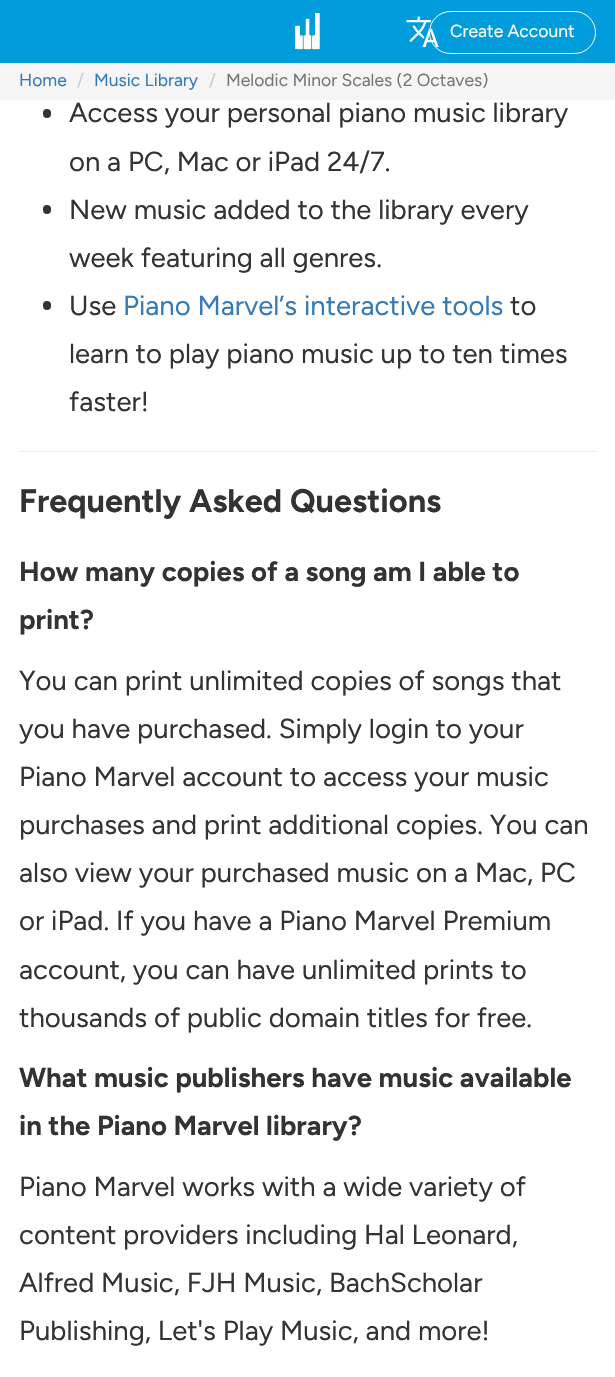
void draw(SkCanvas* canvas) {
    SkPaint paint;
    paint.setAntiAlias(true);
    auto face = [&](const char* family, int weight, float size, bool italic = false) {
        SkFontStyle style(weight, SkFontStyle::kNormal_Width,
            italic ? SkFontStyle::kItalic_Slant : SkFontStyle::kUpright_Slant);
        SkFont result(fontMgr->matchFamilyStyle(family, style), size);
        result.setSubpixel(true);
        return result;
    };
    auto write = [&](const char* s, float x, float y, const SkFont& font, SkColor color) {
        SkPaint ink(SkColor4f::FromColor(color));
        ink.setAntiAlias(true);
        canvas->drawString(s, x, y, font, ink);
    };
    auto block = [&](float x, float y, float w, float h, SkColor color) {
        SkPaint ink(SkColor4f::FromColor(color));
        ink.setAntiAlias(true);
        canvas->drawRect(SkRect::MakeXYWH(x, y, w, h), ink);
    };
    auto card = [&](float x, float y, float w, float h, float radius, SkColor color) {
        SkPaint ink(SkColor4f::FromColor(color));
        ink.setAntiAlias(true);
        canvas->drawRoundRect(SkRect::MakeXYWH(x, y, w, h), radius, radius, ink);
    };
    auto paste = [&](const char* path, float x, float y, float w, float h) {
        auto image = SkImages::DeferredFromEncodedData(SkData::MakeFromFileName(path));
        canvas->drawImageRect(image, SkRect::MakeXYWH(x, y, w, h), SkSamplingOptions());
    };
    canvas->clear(SK_ColorWHITE);
    block(0, 0, 615, 63, SkColorSetRGB(1, 156, 219));
    paste("pic1.png", 295, 13, 25, 37);
    paint.setStyle(SkPaint::kStroke_Style);
    paint.setStrokeWidth(1);
    paint.setColor(SK_ColorWHITE);
    canvas->drawRoundRect(SkRect::MakeXYWH(429.5f, 11.5f, 166, 42), 21, 21, paint);
    paste("pic2.png", 406, 16, 33, 32);
    auto kFont1 = face("Figtree", 400, 17.5f);
    write("Create Account", 450, 37, kFont1, SK_ColorWHITE);
    block(0, 63, 615, 37, SkColorSetRGB(245, 245, 245));
    write("Home", 19, 86, kFont1, SkColorSetRGB(51, 122, 183));
    write("/", 77, 86, kFont1, SkColorSetRGB(204, 204, 204));
    write("Music Library", 94, 86, kFont1, SkColorSetRGB(51, 122, 183));
    write("/", 209, 86, kFont1, SkColorSetRGB(204, 204, 204));
    canvas->save();
    canvas->clipRect(SkRect::MakeXYWH(203, 73, 286, 17));
    write("Melodic Minor Scales (2 Octaves)", 226, 86, kFont1, SkColorSetRGB(119, 119, 119));
    canvas->restore();
    card(43, 109, 8, 9, 4, SkColorSetRGB(51, 51, 51));
    auto kFont2 = face("Figtree", 400, 27.5f);
    write("Access your personal piano music library", 69, 122, kFont2, SkColorSetRGB(51, 51, 51));
    write("on a PC, Mac or iPad 24/7.", 69, 171, kFont2, SkColorSetRGB(51, 51, 51));
    card(43, 205, 8, 9, 4, SkColorSetRGB(51, 51, 51));
    write("New music added to the library every", 69, 219, kFont2, SkColorSetRGB(51, 51, 51));
    write("week featuring all genres.", 69, 267, kFont2, SkColorSetRGB(51, 51, 51));
    card(43, 301, 8, 9, 4, SkColorSetRGB(51, 51, 51));
    write("Use", 69, 315, kFont2, SkColorSetRGB(51, 51, 51));
    write("Piano Marvel’s interactive tools", 123, 315, kFont2, SkColorSetRGB(51, 122, 183));
    write("to", 510, 315, kFont2, SkColorSetRGB(51, 51, 51));
    write("learn to play piano music up to ten times", 69, 363, kFont2, SkColorSetRGB(51, 51, 51));
    write("faster!", 69, 411, kFont2, SkColorSetRGB(51, 51, 51));
    block(19, 451, 577, 1, SkColorSetRGB(238, 238, 238));
    auto kFont3 = face("Figtree", 700, 32.5f);
    write("Frequently Asked Questions", 19, 512, kFont3, SkColorSetRGB(51, 51, 51));
    auto kFont4 = face("Figtree", 700, 27.5f);
    write("How many copies of a song am I able to", 19, 581, kFont4, SkColorSetRGB(51, 51, 51));
    write("print?", 19, 629, kFont4, SkColorSetRGB(51, 51, 51));
    write("You can print unlimited copies of songs that", 19, 690, kFont2, SkColorSetRGB(51, 51, 51));
    write("you have purchased. Simply login to your", 19, 738, kFont2, SkColorSetRGB(51, 51, 51));
    write("Piano Marvel account to access your music", 19, 786, kFont2, SkColorSetRGB(51, 51, 51));
    write("purchases and print additional copies. You can", 19, 834, kFont2, SkColorSetRGB(51, 51, 51));
    write("also view your purchased music on a Mac, PC", 19, 882, kFont2, SkColorSetRGB(51, 51, 51));
    write("or iPad. If you have a Piano Marvel Premium", 19, 930, kFont2, SkColorSetRGB(51, 51, 51));
    write("account, you can have unlimited prints to", 19, 979, kFont2, SkColorSetRGB(51, 51, 51));
    write("thousands of public domain titles for free.", 19, 1027, kFont2, SkColorSetRGB(51, 51, 51));
    write("What music publishers have music available", 19, 1087, kFont4, SkColorSetRGB(51, 51, 51));
    write("in the Piano Marvel library?", 19, 1135, kFont4, SkColorSetRGB(51, 51, 51));
    write("Piano Marvel works with a wide variety of", 19, 1196, kFont2, SkColorSetRGB(51, 51, 51));
    write("content providers including Hal Leonard,", 19, 1244, kFont2, SkColorSetRGB(51, 51, 51));
    write("Alfred Music, FJH Music, BachScholar", 19, 1292, kFont2, SkColorSetRGB(51, 51, 51));
    write("Publishing, Let's Play Music, and more!", 19, 1340, kFont2, SkColorSetRGB(51, 51, 51));
}
